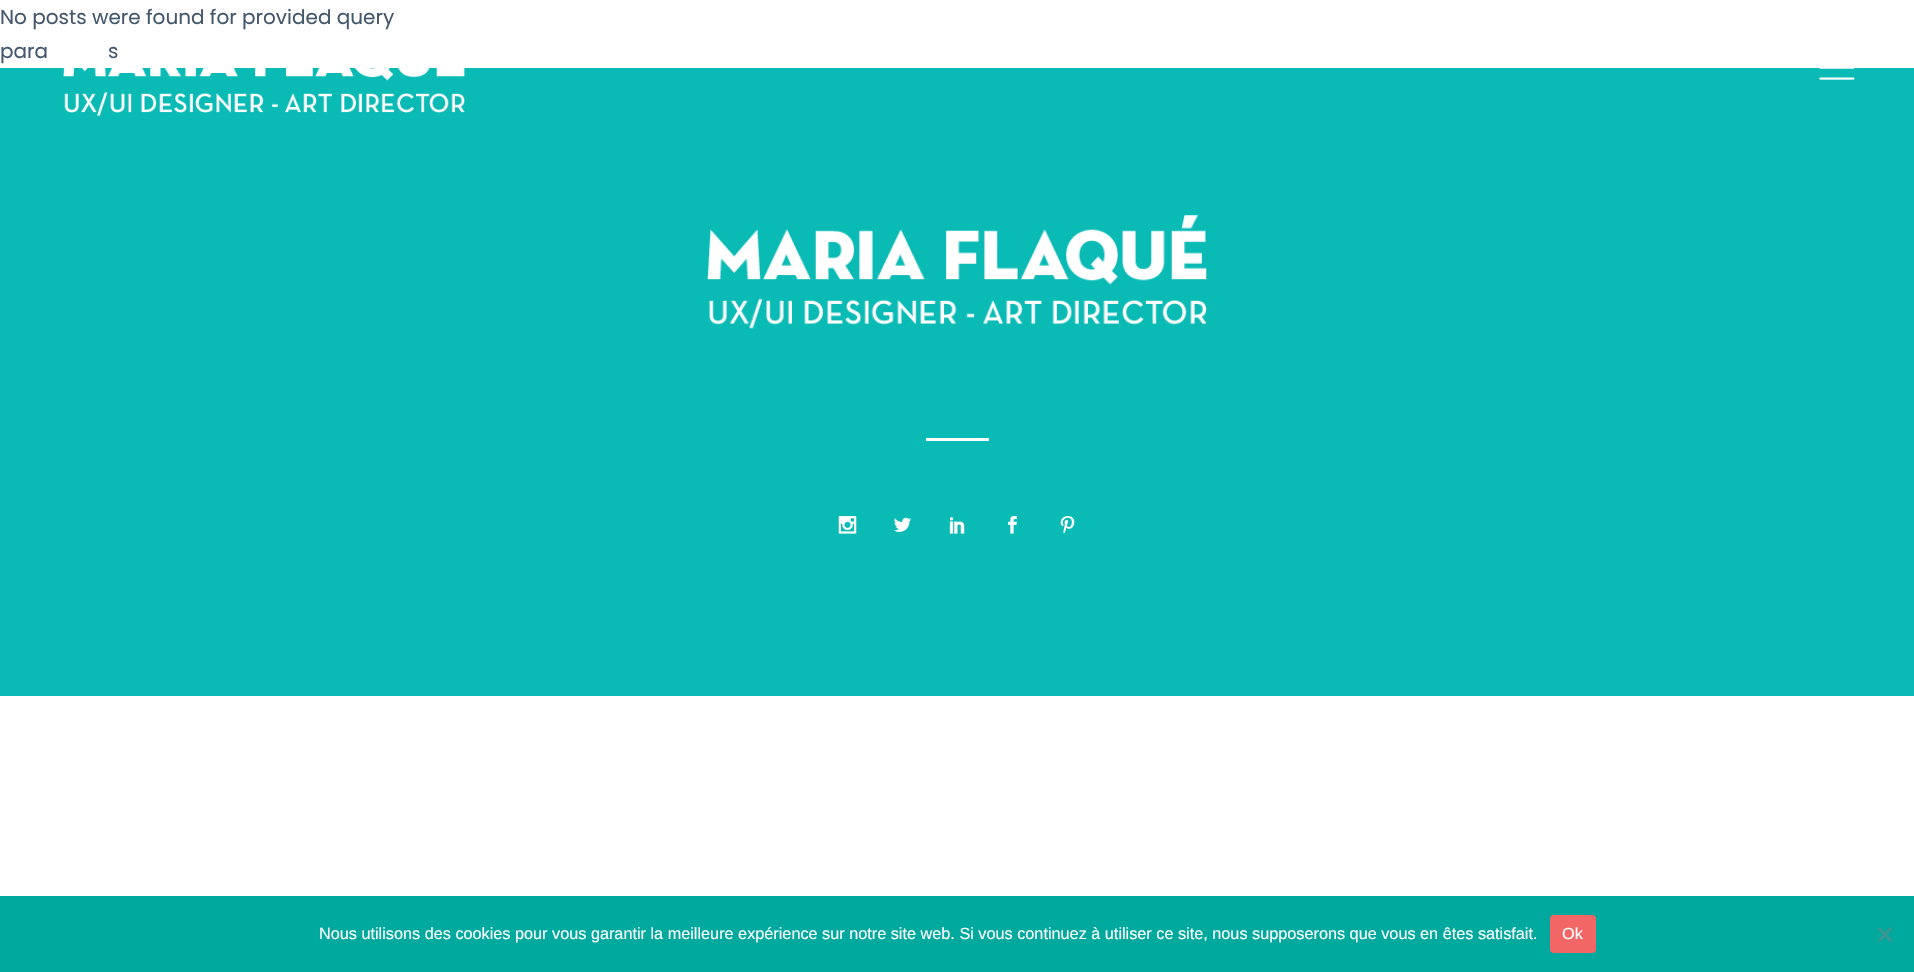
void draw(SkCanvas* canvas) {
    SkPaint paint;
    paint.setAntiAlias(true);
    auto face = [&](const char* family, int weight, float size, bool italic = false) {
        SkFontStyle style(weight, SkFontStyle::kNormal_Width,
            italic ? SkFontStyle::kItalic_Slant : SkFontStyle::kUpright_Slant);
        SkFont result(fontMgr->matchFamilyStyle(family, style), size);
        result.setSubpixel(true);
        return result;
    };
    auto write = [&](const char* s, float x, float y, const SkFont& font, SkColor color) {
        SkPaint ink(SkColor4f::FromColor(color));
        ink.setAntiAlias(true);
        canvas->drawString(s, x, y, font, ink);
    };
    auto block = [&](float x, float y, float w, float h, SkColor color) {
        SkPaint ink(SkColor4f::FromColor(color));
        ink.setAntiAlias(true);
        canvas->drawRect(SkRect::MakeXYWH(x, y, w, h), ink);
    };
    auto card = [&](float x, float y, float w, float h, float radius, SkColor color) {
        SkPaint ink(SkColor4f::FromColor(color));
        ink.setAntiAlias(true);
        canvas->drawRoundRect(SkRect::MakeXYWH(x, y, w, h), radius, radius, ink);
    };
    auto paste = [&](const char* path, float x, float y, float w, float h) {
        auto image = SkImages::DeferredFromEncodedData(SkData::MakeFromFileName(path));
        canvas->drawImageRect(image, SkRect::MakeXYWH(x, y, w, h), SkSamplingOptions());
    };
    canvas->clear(SK_ColorWHITE);
    auto kFont1 = face("Poppins", 400, 20);
    write("No posts were found for provided query", 0, 24, kFont1, SkColorSetRGB(67, 87, 109));
    write("para", 0, 58, kFont1, SkColorSetRGB(67, 87, 109));
    write("s", 108, 58, kFont1, SkColorSetRGB(67, 87, 109));
    block(0, 68, 1914, 628, SkColorSetRGB(10, 187, 181));
    paste("pic1.png", 63, 46, 402, 71);
    paste("pic2.png", 1819, 68, 36, 12);
    paste("pic3.png", 707, 215, 500, 114);
    block(926, 438, 63, 3, SK_ColorWHITE);
    paste("pic4.png", 838, 516, 19, 18);
    paste("pic5.png", 894, 517, 18, 15);
    paste("pic6.png", 949, 517, 16, 17);
    paste("pic7.png", 1008, 516, 9, 18);
    paste("pic8.png", 1060, 516, 15, 18);
    block(0, 896, 1914, 76, SkColorSetRGB(0, 169, 157));
    auto kFont2 = face("Liberation Sans", 400, 16.25f);
    write("Nous utilisons des cookies pour vous garantir la meilleure expérience sur notre site web. Si vous continuez à utiliser ce site, nous supposerons que vous en êtes satisfait.", 319, 939, kFont2, SK_ColorWHITE);
    card(1550, 915, 46, 38, 4, SkColorSetRGB(242, 102, 102));
    write("Ok", 1562, 939, kFont2, SK_ColorWHITE);
    paint.setColor(SkColorSetRGB(64, 149, 143));
    canvas->drawPath(SkPathBuilder().moveTo(1890.5f, 927).lineTo(1892.5f, 929).lineTo(1879.5f, 942).lineTo(1877.5f, 940.5f).close().detach(), paint);
    canvas->drawPath(SkPathBuilder().moveTo(1877.5f, 929).lineTo(1879.5f, 927).lineTo(1892.5f, 940.5f).lineTo(1890.5f, 942).close().detach(), paint);
}
